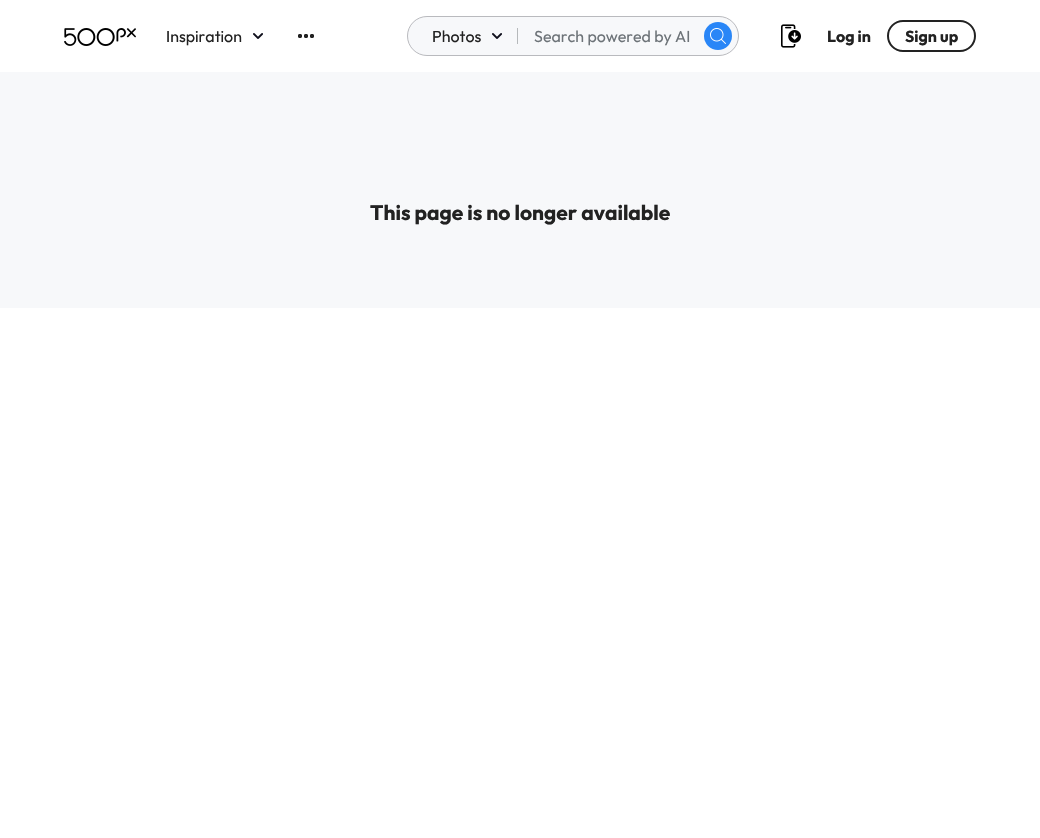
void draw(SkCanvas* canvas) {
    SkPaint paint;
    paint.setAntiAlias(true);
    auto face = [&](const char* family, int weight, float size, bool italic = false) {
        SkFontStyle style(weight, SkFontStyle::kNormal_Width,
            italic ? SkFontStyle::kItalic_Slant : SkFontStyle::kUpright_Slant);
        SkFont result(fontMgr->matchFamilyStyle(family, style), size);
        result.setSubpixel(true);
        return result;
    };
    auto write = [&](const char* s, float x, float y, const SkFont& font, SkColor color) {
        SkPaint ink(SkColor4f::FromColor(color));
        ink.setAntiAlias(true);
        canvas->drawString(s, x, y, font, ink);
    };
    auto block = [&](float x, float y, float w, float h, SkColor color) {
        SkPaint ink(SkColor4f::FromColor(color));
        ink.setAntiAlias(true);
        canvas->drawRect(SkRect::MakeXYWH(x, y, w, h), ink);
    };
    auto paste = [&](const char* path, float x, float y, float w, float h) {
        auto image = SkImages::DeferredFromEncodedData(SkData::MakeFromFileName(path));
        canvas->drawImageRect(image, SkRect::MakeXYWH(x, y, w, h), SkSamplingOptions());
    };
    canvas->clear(SK_ColorWHITE);
    paste("pic1.png", 64, 28, 72, 18);
    auto kFont1 = face("Outfit", 400, 16);
    write("Inspiration", 166, 42, kFont1, SkColorSetRGB(34, 34, 34));
    paste("pic2.png", 253, 33, 10, 6);
    paste("pic3.png", 298, 34, 16, 4);
    paint.setColor(SkColorSetRGB(247, 248, 250));
    canvas->drawRoundRect(SkRect::MakeXYWH(407.5f, 16.5f, 331, 39), 19.5f, 19.5f, paint);
    paint.setStyle(SkPaint::kStroke_Style);
    paint.setStrokeWidth(1);
    paint.setColor(SkColorSetRGB(185, 186, 190));
    canvas->drawRoundRect(SkRect::MakeXYWH(407.5f, 16.5f, 331, 39), 19.5f, 19.5f, paint);
    write("Photos", 432, 42, kFont1, SkColorSetRGB(34, 34, 34));
    paste("pic4.png", 492, 33, 10, 6);
    block(517, 28, 1, 16, SkColorSetRGB(182, 185, 187));
    write("Search powered by AI", 534, 42, kFont1, SkColorSetRGB(109, 115, 120));
    paint.setStyle(SkPaint::kFill_Style);
    paint.setColor(SkColorSetRGB(41, 134, 247));
    canvas->drawCircle(718, 36, 14, paint);
    paste("pic5.png", 710, 28, 16, 16);
    paste("pic6.png", 781, 24, 20, 24);
    auto kFont2 = face("Outfit", 700, 16);
    write("Log in", 827, 42, kFont2, SkColorSetRGB(34, 34, 34));
    paint.setStyle(SkPaint::kStroke_Style);
    paint.setStrokeWidth(2);
    paint.setColor(SkColorSetRGB(34, 34, 34));
    canvas->drawRoundRect(SkRect::MakeXYWH(888, 21, 87, 30), 15, 15, paint);
    write("Sign up", 905, 42, kFont2, SkColorSetRGB(34, 34, 34));
    block(0, 72, 1040, 236, SkColorSetRGB(247, 248, 250));
    auto kFont3 = face("Outfit", 700, 21);
    write("This page is no longer available", 370, 220, kFont3, SkColorSetRGB(34, 34, 34));
}
